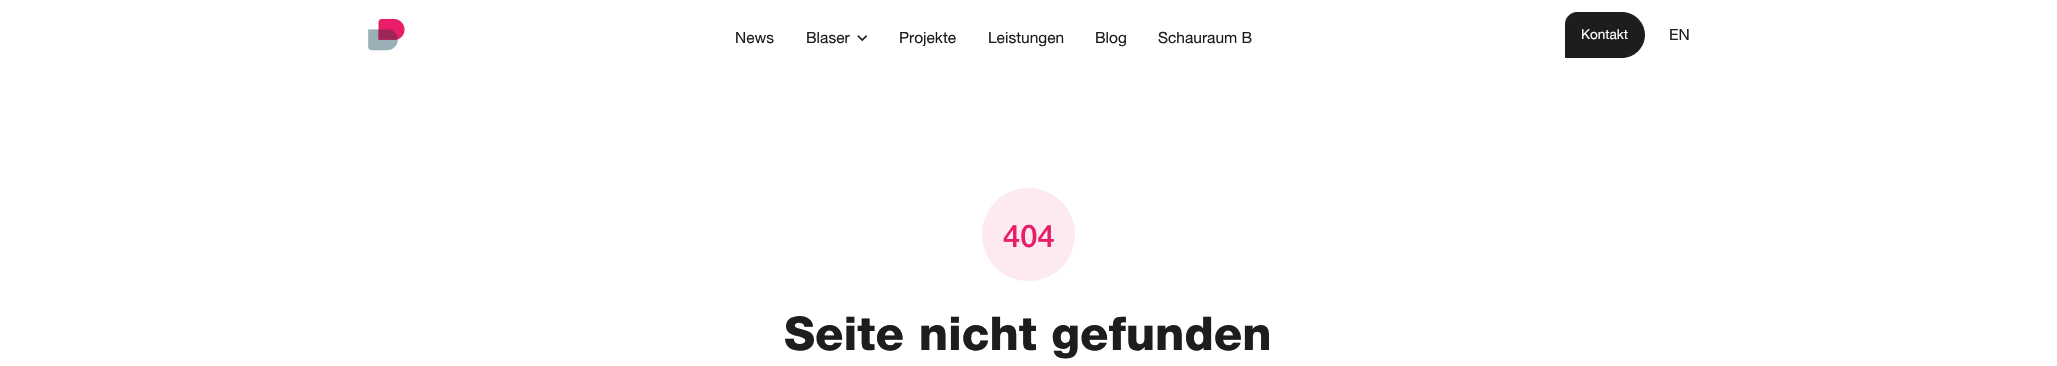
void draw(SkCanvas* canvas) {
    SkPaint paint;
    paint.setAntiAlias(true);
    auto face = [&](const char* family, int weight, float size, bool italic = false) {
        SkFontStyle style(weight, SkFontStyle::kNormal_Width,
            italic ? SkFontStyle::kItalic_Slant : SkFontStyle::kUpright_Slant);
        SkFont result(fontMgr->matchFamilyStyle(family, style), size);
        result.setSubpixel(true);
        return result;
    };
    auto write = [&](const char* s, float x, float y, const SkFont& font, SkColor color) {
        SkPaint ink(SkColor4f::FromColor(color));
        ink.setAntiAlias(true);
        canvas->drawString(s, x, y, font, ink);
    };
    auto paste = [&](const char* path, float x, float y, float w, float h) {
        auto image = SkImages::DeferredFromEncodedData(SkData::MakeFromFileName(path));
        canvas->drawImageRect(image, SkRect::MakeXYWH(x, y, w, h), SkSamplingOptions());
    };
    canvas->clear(SK_ColorWHITE);
    paste("pic1.png", 368, 19, 37, 32);
    auto kFont1 = face("Helvetica Neue", 400, 15.5f);
    write("News", 735, 43, kFont1, SkColorSetRGB(29, 29, 29));
    write("Blaser", 806, 43, kFont1, SkColorSetRGB(29, 29, 29));
    paste("pic2.png", 857, 35, 11, 7);
    write("Projekte", 899, 43, kFont1, SkColorSetRGB(29, 29, 29));
    write("Leistungen", 988, 43, kFont1, SkColorSetRGB(29, 29, 29));
    write("Blog", 1095, 43, kFont1, SkColorSetRGB(29, 29, 29));
    write("Schauraum B", 1158, 43, kFont1, SkColorSetRGB(29, 29, 29));
    paint.setColor(SkColorSetRGB(29, 29, 29));
    canvas->drawPath(SkPathBuilder().moveTo(1577, 12.5f).lineTo(1622, 12.5f).cubicTo(1634.5f, 12.5f, 1644.5f, 22.5f, 1644.5f, 35).cubicTo(1644.5f, 47.5f, 1634.5f, 57.5f, 1622, 57.5f).lineTo(1565.5f, 57.5f).lineTo(1565.5f, 24).cubicTo(1565.5f, 17.5f, 1570.5f, 12.5f, 1577, 12.5f).close().detach(), paint);
    paint.setStyle(SkPaint::kStroke_Style);
    paint.setStrokeWidth(1);
    canvas->drawPath(SkPathBuilder().moveTo(1577, 12.5f).lineTo(1622, 12.5f).cubicTo(1634.5f, 12.5f, 1644.5f, 22.5f, 1644.5f, 35).cubicTo(1644.5f, 47.5f, 1634.5f, 57.5f, 1622, 57.5f).lineTo(1565.5f, 57.5f).lineTo(1565.5f, 24).cubicTo(1565.5f, 17.5f, 1570.5f, 12.5f, 1577, 12.5f).close().detach(), paint);
    auto kFont2 = face("Helvetica Neue", 400, 13.5f);
    write("Kontakt", 1581, 39, kFont2, SK_ColorWHITE);
    write("EN", 1669, 40, kFont1, SkColorSetRGB(29, 29, 29));
    paint.setStyle(SkPaint::kFill_Style);
    paint.setColor(SkColorSetRGB(253, 233, 240));
    canvas->drawCircle(1028.5f, 234.5f, 46.5f, paint);
    auto kFont3 = face("Helvetica Neue", 500, 31);
    write("404", 1003, 247, kFont3, SkColorSetRGB(232, 31, 104));
    auto kFont4 = face("Helvetica Neue", 700, 46.6f);
    write("Seite nicht gefunden", 784, 350, kFont4, SkColorSetRGB(29, 29, 29));
}
